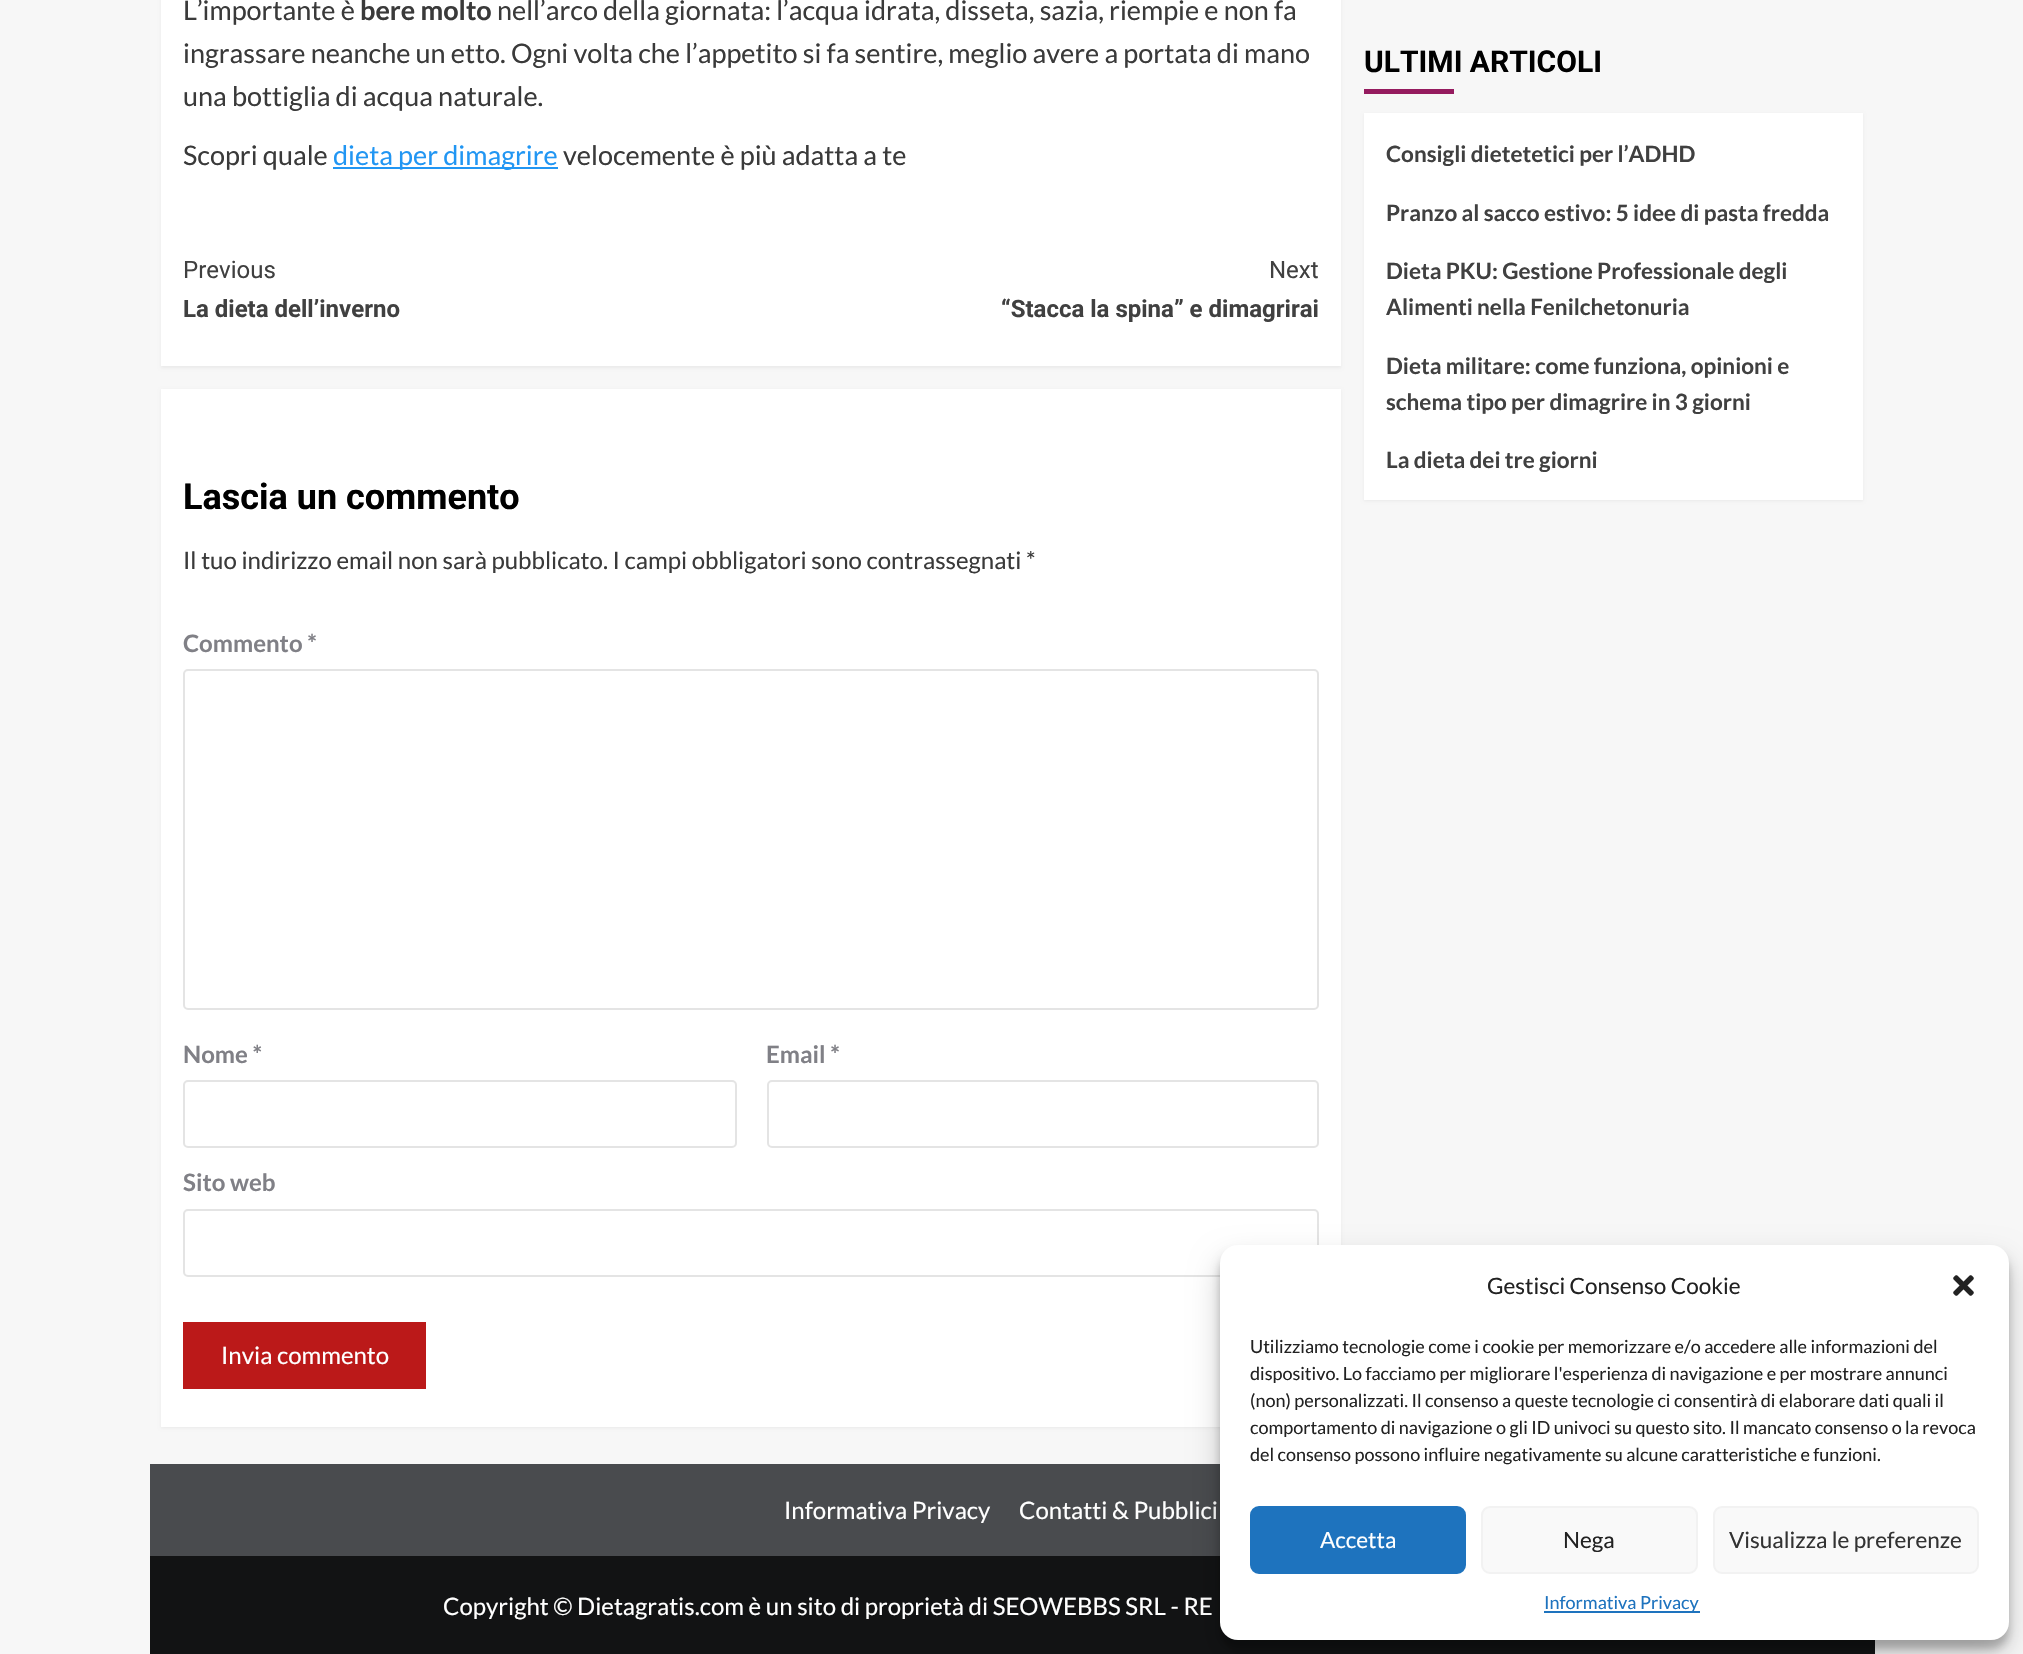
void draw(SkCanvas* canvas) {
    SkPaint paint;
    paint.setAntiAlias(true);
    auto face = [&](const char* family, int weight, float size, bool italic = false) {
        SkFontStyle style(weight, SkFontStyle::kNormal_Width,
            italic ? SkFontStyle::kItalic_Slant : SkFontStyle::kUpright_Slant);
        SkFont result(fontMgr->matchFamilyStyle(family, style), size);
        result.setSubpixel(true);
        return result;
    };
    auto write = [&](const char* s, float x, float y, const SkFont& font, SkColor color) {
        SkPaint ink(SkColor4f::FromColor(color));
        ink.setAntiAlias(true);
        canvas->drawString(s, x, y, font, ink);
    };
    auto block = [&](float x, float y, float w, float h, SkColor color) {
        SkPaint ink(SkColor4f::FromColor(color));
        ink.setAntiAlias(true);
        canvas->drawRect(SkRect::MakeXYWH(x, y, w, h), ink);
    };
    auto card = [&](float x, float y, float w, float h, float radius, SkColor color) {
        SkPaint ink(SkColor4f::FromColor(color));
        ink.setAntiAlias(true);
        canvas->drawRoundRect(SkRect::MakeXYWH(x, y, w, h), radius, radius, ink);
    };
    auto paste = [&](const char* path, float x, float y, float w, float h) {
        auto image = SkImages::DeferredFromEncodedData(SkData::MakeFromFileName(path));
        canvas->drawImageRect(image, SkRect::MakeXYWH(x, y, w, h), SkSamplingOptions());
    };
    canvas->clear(SkColorSetRGB(247, 247, 247));
    paint.setColor(SkColorSetARGB(13, 0, 0, 0));
    paint.setMaskFilter(SkMaskFilter::MakeBlur(kNormal_SkBlurStyle, 1.5f));
    canvas->drawRect(SkRect::MakeXYWH(161, -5, 1180, 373), paint);
    paint.setMaskFilter(nullptr);
    block(161, 0, 1180, 366, SK_ColorWHITE);
    auto kFont1 = face("Lato", 400, 27);
    write("L’importante è", 183, 20, kFont1, SkColorSetRGB(58, 58, 58));
    auto kFont2 = face("Lato", 700, 27);
    write("bere molto", 360, 20, kFont2, SkColorSetRGB(58, 58, 58));
    write("nell’arco della giornata: l’acqua idrata, disseta, sazia, riempie e non fa", 497, 20, kFont1, SkColorSetRGB(58, 58, 58));
    write("ingrassare neanche un etto. Ogni volta che l’appetito si fa sentire, meglio avere a portata di mano", 183, 63, kFont1, SkColorSetRGB(58, 58, 58));
    write("una bottiglia di acqua naturale.", 183, 106, kFont1, SkColorSetRGB(58, 58, 58));
    write("Scopri quale", 183, 165, kFont1, SkColorSetRGB(58, 58, 58));
    block(333, 167, 225, 2, SkColorSetRGB(33, 150, 243));
    write("dieta per dimagrire", 333, 165, kFont1, SkColorSetRGB(33, 150, 243));
    write("velocemente è più adatta a te", 563, 165, kFont1, SkColorSetRGB(58, 58, 58));
    auto kFont3 = face("Roboto", 400, 24);
    write("Previous", 183, 278, kFont3, SkColorSetRGB(64, 64, 64));
    auto kFont4 = face("Roboto", 700, 24);
    write("La dieta dell’inverno", 183, 317, kFont4, SkColorSetRGB(64, 64, 64));
    write("Next", 1269, 278, kFont3, SkColorSetRGB(64, 64, 64));
    write("“Stacca la spina” e dimagrirai", 1001, 317, kFont4, SkColorSetRGB(64, 64, 64));
    paint.setMaskFilter(SkMaskFilter::MakeBlur(kNormal_SkBlurStyle, 1.5f));
    canvas->drawRect(SkRect::MakeXYWH(161, 390, 1180, 1038), paint);
    paint.setMaskFilter(nullptr);
    block(161, 389, 1180, 1038, SK_ColorWHITE);
    auto kFont5 = face("Roboto", 700, 36);
    write("Lascia un commento", 183, 509, kFont5, SK_ColorBLACK);
    auto kFont6 = face("Lato", 400, 24);
    write("Il tuo indirizzo email non sarà pubblicato. I campi obbligatori sono contrassegnati *", 183, 569, kFont6, SkColorSetRGB(58, 58, 58));
    auto kFont7 = face("Lato", 700, 24);
    write("Commento *", 183, 652, kFont7, SkColorSetRGB(128, 128, 134));
    paint.setStyle(SkPaint::kStroke_Style);
    paint.setStrokeWidth(2);
    paint.setColor(SkColorSetRGB(228, 228, 228));
    canvas->drawRoundRect(SkRect::MakeXYWH(184, 670, 1134, 339), 4, 4, paint);
    write("Nome *", 183, 1063, kFont7, SkColorSetRGB(128, 128, 134));
    canvas->drawRoundRect(SkRect::MakeXYWH(184, 1081, 552, 66), 4, 4, paint);
    write("Email *", 766, 1063, kFont7, SkColorSetRGB(128, 128, 134));
    canvas->drawRoundRect(SkRect::MakeXYWH(768, 1081, 550, 66), 4, 4, paint);
    write("Sito web", 183, 1191, kFont7, SkColorSetRGB(128, 128, 134));
    canvas->drawRoundRect(SkRect::MakeXYWH(184, 1210, 1134, 66), 4, 4, paint);
    block(183, 1322, 243, 67, SkColorSetRGB(187, 25, 25));
    write("Invia commento", 221, 1364, kFont6, SK_ColorWHITE);
    auto kFont8 = face("Roboto", 700, 30);
    write("ULTIMI ARTICOLI", 1364, 72, kFont8, SK_ColorBLACK);
    block(1364, 89, 90, 5, SkColorSetRGB(149, 27, 95));
    paint.setStyle(SkPaint::kFill_Style);
    paint.setColor(SkColorSetARGB(13, 0, 0, 0));
    paint.setMaskFilter(SkMaskFilter::MakeBlur(kNormal_SkBlurStyle, 1.5f));
    canvas->drawRect(SkRect::MakeXYWH(1364, 114, 499, 387), paint);
    paint.setMaskFilter(nullptr);
    block(1364, 113, 499, 387, SK_ColorWHITE);
    auto kFont9 = face("Lato", 700, 22.5f);
    write("Consigli dietetetici per l’ADHD", 1386, 162, kFont9, SkColorSetRGB(64, 64, 64));
    write("Pranzo al sacco estivo: 5 idee di pasta fredda", 1386, 221, kFont9, SkColorSetRGB(64, 64, 64));
    write("Dieta PKU: Gestione Professionale degli", 1386, 279, kFont9, SkColorSetRGB(64, 64, 64));
    write("Alimenti nella Fenilchetonuria", 1386, 315, kFont9, SkColorSetRGB(64, 64, 64));
    write("Dieta militare: come funziona, opinioni e", 1386, 374, kFont9, SkColorSetRGB(64, 64, 64));
    write("schema tipo per dimagrire in 3 giorni", 1386, 410, kFont9, SkColorSetRGB(64, 64, 64));
    write("La dieta dei tre giorni", 1386, 468, kFont9, SkColorSetRGB(64, 64, 64));
    block(150, 1464, 1070, 92, SkColorSetRGB(73, 75, 78));
    write("Informativa Privacy", 784, 1519, kFont6, SK_ColorWHITE);
    write("Contatti & Pubblici", 1019, 1519, kFont6, SK_ColorWHITE);
    block(150, 1556, 1725, 98, SkColorSetRGB(18, 19, 20));
    write("Copyright © Dietagratis.com è un sito di proprietà di SEOWEBBS SRL - RE", 443, 1615, kFont6, SK_ColorWHITE);
    paint.setColor(SkColorSetARGB(59, 0, 0, 0));
    paint.setMaskFilter(SkMaskFilter::MakeBlur(kNormal_SkBlurStyle, 4.5f));
    canvas->drawRoundRect(SkRect::MakeXYWH(1220, 1254, 789, 395), 18, 18, paint);
    paint.setMaskFilter(nullptr);
    paint.setColor(SkColorSetARGB(48, 0, 0, 0));
    paint.setMaskFilter(SkMaskFilter::MakeBlur(kNormal_SkBlurStyle, 15));
    canvas->drawRoundRect(SkRect::MakeXYWH(1220, 1260, 789, 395), 18, 18, paint);
    paint.setMaskFilter(nullptr);
    card(1220, 1245, 789, 395, 18, SK_ColorWHITE);
    auto kFont10 = face("Lato", 400, 22.5f);
    write("Gestisci Consenso Cookie", 1487, 1294, kFont10, SkColorSetRGB(34, 34, 34));
    paste("pic1.png", 1953, 1275, 21, 21);
    auto kFont11 = face("Lato", 400, 18);
    write("Utilizziamo tecnologie come i cookie per memorizzare e/o accedere alle informazioni del", 1250, 1353, kFont11, SkColorSetRGB(34, 34, 34));
    write("dispositivo. Lo facciamo per migliorare l'esperienza di navigazione e per mostrare annunci", 1250, 1380, kFont11, SkColorSetRGB(34, 34, 34));
    write("(non) personalizzati. Il consenso a queste tecnologie ci consentirà di elaborare dati quali il", 1250, 1407, kFont11, SkColorSetRGB(34, 34, 34));
    write("comportamento di navigazione o gli ID univoci su questo sito. Il mancato consenso o la revoca", 1250, 1434, kFont11, SkColorSetRGB(34, 34, 34));
    write("del consenso possono influire negativamente su alcune caratteristiche e funzioni.", 1250, 1461, kFont11, SkColorSetRGB(34, 34, 34));
    paint.setColor(SkColorSetRGB(30, 115, 190));
    canvas->drawRoundRect(SkRect::MakeXYWH(1251, 1507, 214, 66), 8, 8, paint);
    paint.setStyle(SkPaint::kStroke_Style);
    canvas->drawRoundRect(SkRect::MakeXYWH(1251, 1507, 214, 66), 8, 8, paint);
    write("Accetta", 1320, 1548, kFont10, SK_ColorWHITE);
    paint.setStyle(SkPaint::kFill_Style);
    paint.setColor(SkColorSetRGB(249, 249, 249));
    canvas->drawRoundRect(SkRect::MakeXYWH(1482, 1507, 215, 66), 8, 8, paint);
    paint.setStyle(SkPaint::kStroke_Style);
    paint.setColor(SkColorSetRGB(242, 242, 242));
    canvas->drawRoundRect(SkRect::MakeXYWH(1482, 1507, 215, 66), 8, 8, paint);
    write("Nega", 1563, 1548, kFont10, SkColorSetRGB(34, 34, 34));
    paint.setStyle(SkPaint::kFill_Style);
    paint.setColor(SkColorSetRGB(249, 249, 249));
    canvas->drawRoundRect(SkRect::MakeXYWH(1714, 1507, 264, 66), 8, 8, paint);
    paint.setStyle(SkPaint::kStroke_Style);
    paint.setColor(SkColorSetRGB(242, 242, 242));
    canvas->drawRoundRect(SkRect::MakeXYWH(1714, 1507, 264, 66), 8, 8, paint);
    write("Visualizza le preferenze", 1729, 1548, kFont10, SkColorSetRGB(51, 51, 51));
    block(1544, 1611, 156, 2, SkColorSetRGB(30, 115, 190));
    write("Informativa Privacy", 1544, 1609, kFont11, SkColorSetRGB(30, 115, 190));
}
